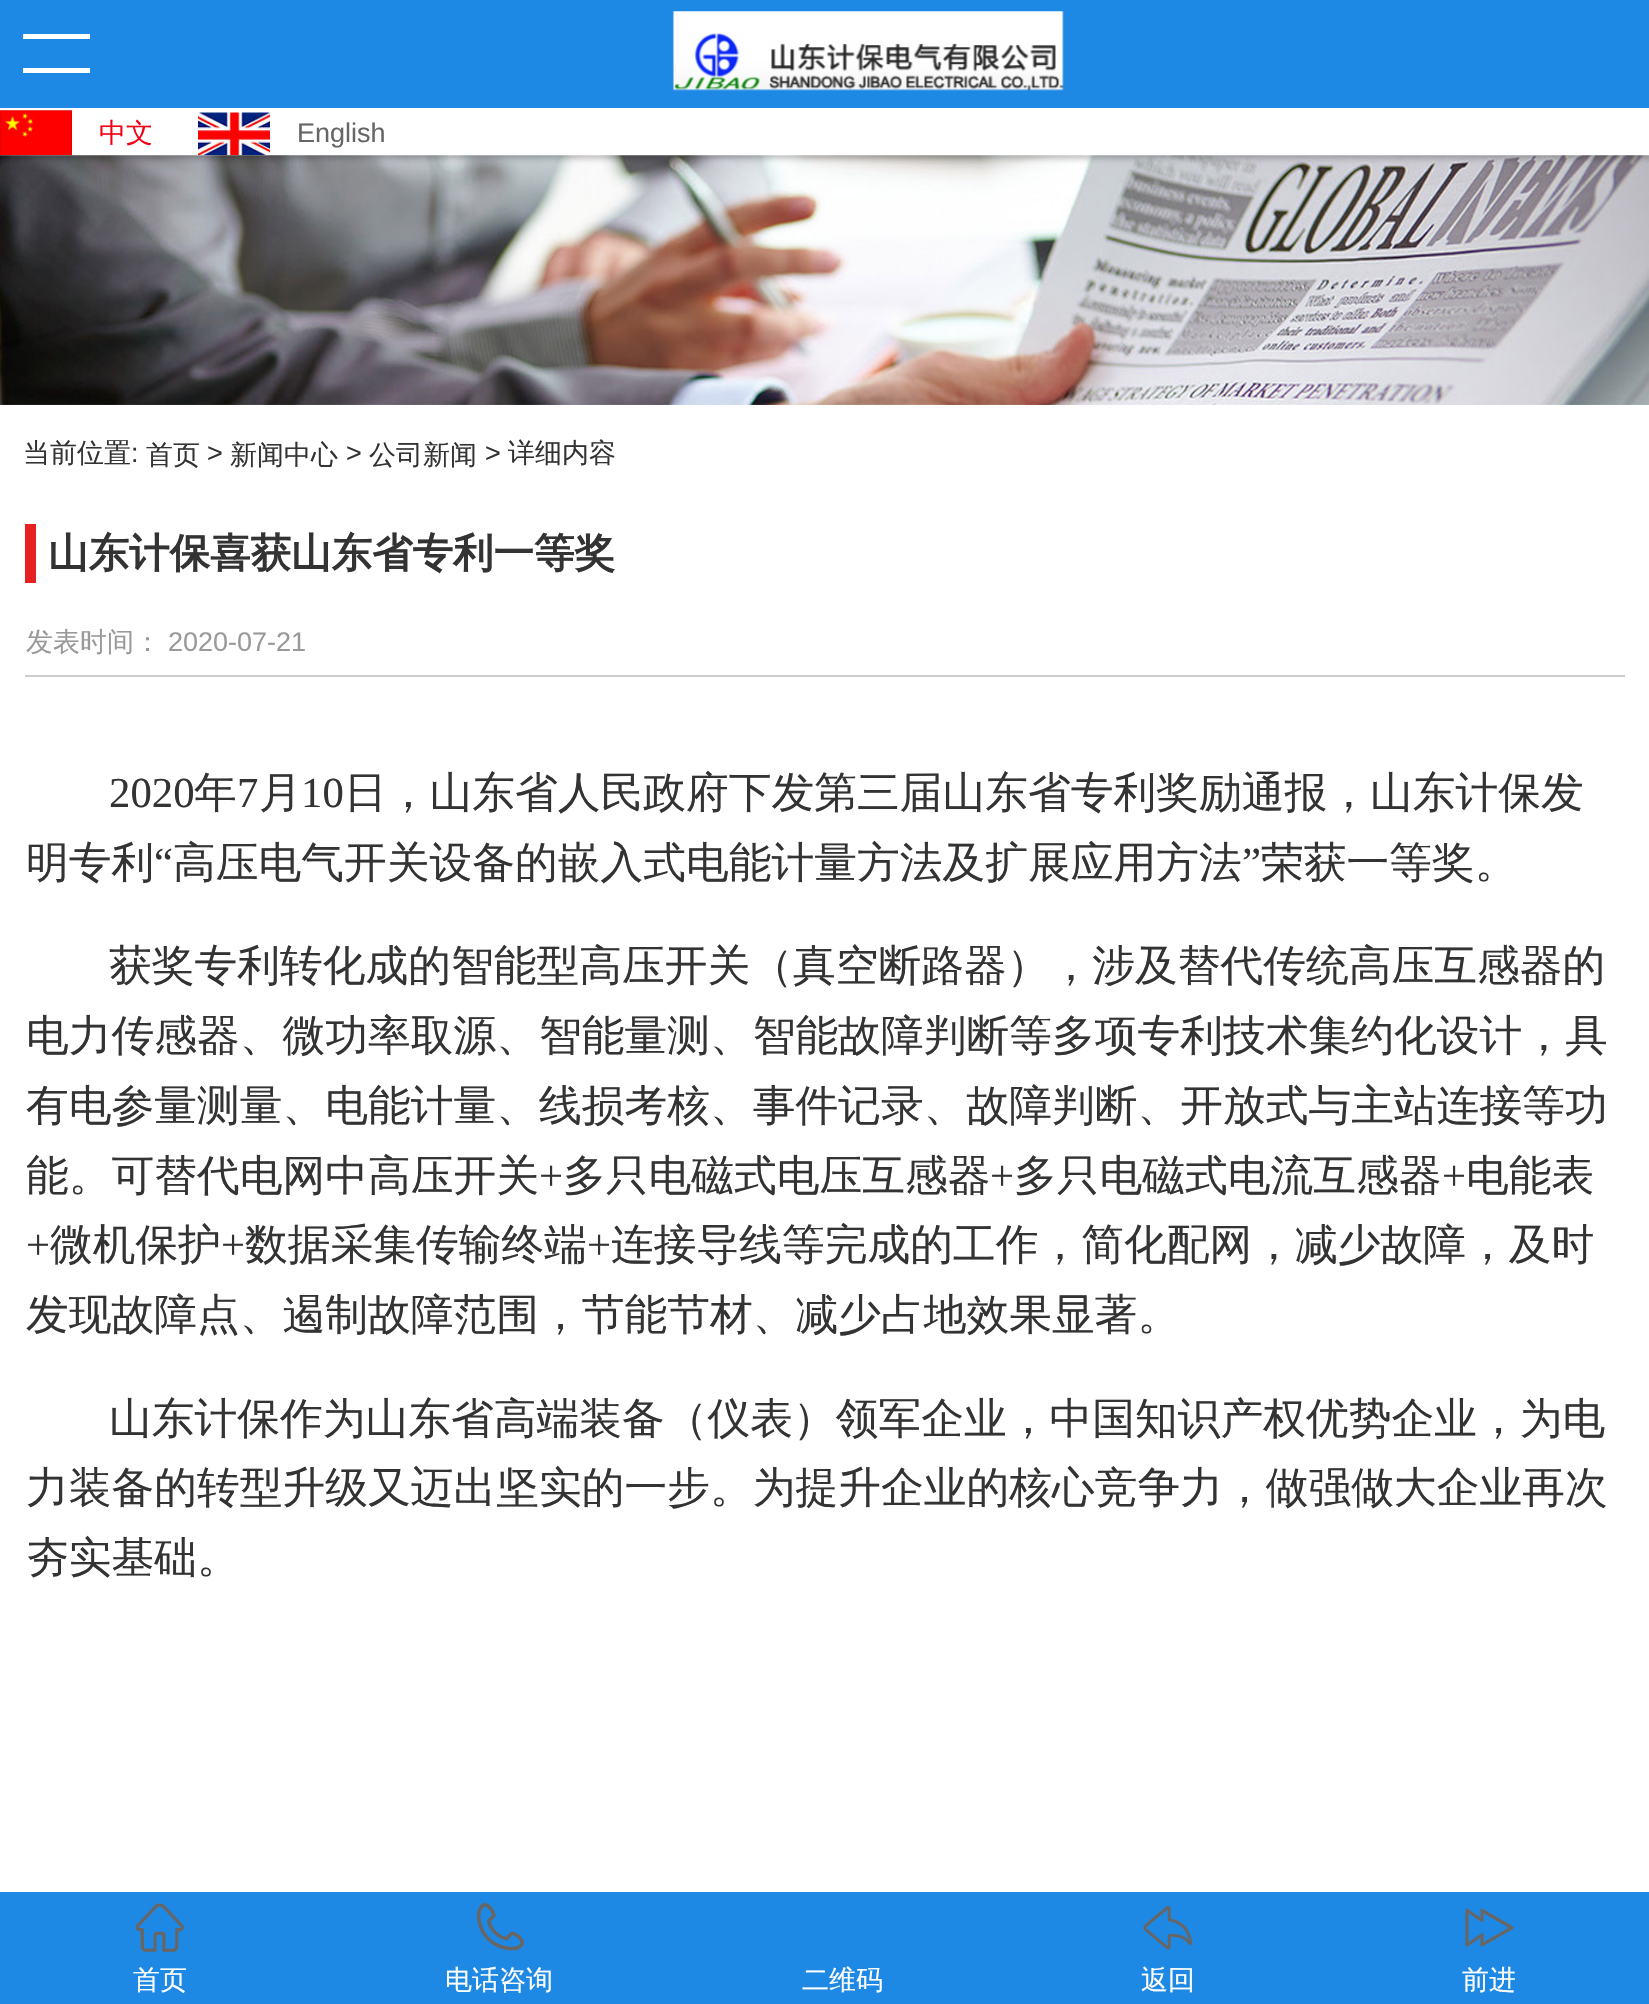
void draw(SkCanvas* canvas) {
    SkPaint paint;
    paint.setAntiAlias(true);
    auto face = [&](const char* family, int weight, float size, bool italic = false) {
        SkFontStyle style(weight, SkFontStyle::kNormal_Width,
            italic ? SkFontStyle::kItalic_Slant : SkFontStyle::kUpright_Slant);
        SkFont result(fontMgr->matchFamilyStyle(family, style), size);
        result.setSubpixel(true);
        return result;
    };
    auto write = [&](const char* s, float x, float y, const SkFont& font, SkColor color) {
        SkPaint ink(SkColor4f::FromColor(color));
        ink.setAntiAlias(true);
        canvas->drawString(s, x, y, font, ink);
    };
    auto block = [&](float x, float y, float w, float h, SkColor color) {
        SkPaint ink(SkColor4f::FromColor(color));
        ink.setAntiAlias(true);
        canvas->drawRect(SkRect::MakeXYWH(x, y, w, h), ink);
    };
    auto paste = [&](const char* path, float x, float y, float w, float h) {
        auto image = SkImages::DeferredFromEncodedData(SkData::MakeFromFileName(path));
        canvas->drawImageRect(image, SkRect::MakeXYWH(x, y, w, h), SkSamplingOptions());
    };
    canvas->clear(SK_ColorWHITE);
    block(0, 0, 1649, 108, SkColorSetRGB(30, 136, 229));
    block(23, 34, 67, 5, SK_ColorWHITE);
    block(23, 68, 67, 5, SK_ColorWHITE);
    paste("pic1.png", 672, 11, 392, 80);
    paste("pic2.png", 0, 110, 72, 46);
    auto kFont1 = face("WenQuanYi Zen Hei", 500, 27);
    write("中文", 99, 142, kFont1, SkColorSetRGB(241, 2, 21));
    paste("pic3.png", 198, 112, 72, 44);
    auto kFont2 = face("Liberation Sans", 400, 27);
    write("English", 297, 142, kFont2, SkColorSetRGB(102, 102, 102));
    paste("pic4.png", 0, 155, 1649, 250);
    write("当前位置", 23, 462, kFont1, SkColorSetRGB(51, 51, 51));
    write(":", 131, 462, kFont2, SkColorSetRGB(51, 51, 51));
    write("首页", 146, 464, kFont1, SkColorSetRGB(51, 51, 51));
    write(">", 207, 462, kFont2, SkColorSetRGB(51, 51, 51));
    write("新闻中心", 230, 464, kFont1, SkColorSetRGB(51, 51, 51));
    write(">", 346, 462, kFont2, SkColorSetRGB(51, 51, 51));
    write("公司新闻", 369, 464, kFont1, SkColorSetRGB(51, 51, 51));
    write(">", 485, 462, kFont2, SkColorSetRGB(51, 51, 51));
    write("详细内容", 508, 462, kFont1, SkColorSetRGB(51, 51, 51));
    block(25, 524, 11, 59, SkColorSetRGB(229, 33, 33));
    auto kFont3 = face("WenQuanYi Zen Hei", 700, 40.5f);
    write("山东计保喜获山东省专利一等奖", 48, 567, kFont3, SkColorSetRGB(51, 51, 51));
    block(25, 675, 1600, 2, SkColorSetRGB(204, 204, 204));
    write("发表时间：", 26, 651, kFont1, SkColorSetRGB(153, 153, 153));
    write("2020-07-21", 168, 651, kFont2, SkColorSetRGB(153, 153, 153));
    auto kFont4 = face("Liberation Serif", 400, 42.75f);
    write("2020", 109, 807, kFont4, SkColorSetRGB(51, 51, 51));
    auto kFont5 = face("WenQuanYi Zen Hei", 500, 42.75f);
    write("年", 194, 807, kFont5, SkColorSetRGB(51, 51, 51));
    write("7", 237, 807, kFont4, SkColorSetRGB(51, 51, 51));
    write("月", 259, 807, kFont5, SkColorSetRGB(51, 51, 51));
    write("10", 301, 807, kFont4, SkColorSetRGB(51, 51, 51));
    write("日，山东省人民政府下发第三届山东省专利奖励通报，山东计保发", 344, 807, kFont5, SkColorSetRGB(51, 51, 51));
    write("明专利", 26, 877, kFont5, SkColorSetRGB(51, 51, 51));
    write("“", 154, 877, kFont4, SkColorSetRGB(51, 51, 51));
    write("高压电气开关设备的嵌入式电能计量方法及扩展应用方法", 173, 877, kFont5, SkColorSetRGB(51, 51, 51));
    write("”", 1242, 877, kFont4, SkColorSetRGB(51, 51, 51));
    write("荣获一等奖。", 1261, 877, kFont5, SkColorSetRGB(51, 51, 51));
    write("获奖专利转化成的智能型高压开关（真空断路器），涉及替代传统高压互感器的", 109, 980, kFont5, SkColorSetRGB(51, 51, 51));
    write("电力传感器、微功率取源、智能量测、智能故障判断等多项专利技术集约化设计，具", 26, 1050, kFont5, SkColorSetRGB(51, 51, 51));
    write("有电参量测量、电能计量、线损考核、事件记录、故障判断、开放式与主站连接等功", 26, 1120, kFont5, SkColorSetRGB(51, 51, 51));
    write("能。可替代电网中高压开关", 26, 1190, kFont5, SkColorSetRGB(51, 51, 51));
    write("+", 539, 1190, kFont4, SkColorSetRGB(51, 51, 51));
    write("多只电磁式电压互感器", 563, 1190, kFont5, SkColorSetRGB(51, 51, 51));
    write("+", 990, 1190, kFont4, SkColorSetRGB(51, 51, 51));
    write("多只电磁式电流互感器", 1014, 1190, kFont5, SkColorSetRGB(51, 51, 51));
    write("+", 1442, 1190, kFont4, SkColorSetRGB(51, 51, 51));
    write("电能表", 1466, 1190, kFont5, SkColorSetRGB(51, 51, 51));
    write("+", 26, 1259, kFont4, SkColorSetRGB(51, 51, 51));
    write("微机保护", 50, 1259, kFont5, SkColorSetRGB(51, 51, 51));
    write("+", 221, 1259, kFont4, SkColorSetRGB(51, 51, 51));
    write("数据采集传输终端", 245, 1259, kFont5, SkColorSetRGB(51, 51, 51));
    write("+", 587, 1259, kFont4, SkColorSetRGB(51, 51, 51));
    write("连接导线等完成的工作，简化配网，减少故障，及时", 611, 1259, kFont5, SkColorSetRGB(51, 51, 51));
    write("发现故障点、遏制故障范围，节能节材、减少占地效果显著。", 26, 1329, kFont5, SkColorSetRGB(51, 51, 51));
    write("山东计保作为山东省高端装备（仪表）领军企业，中国知识产权优势企业，为电", 109, 1433, kFont5, SkColorSetRGB(51, 51, 51));
    write("力装备的转型升级又迈出坚实的一步。为提升企业的核心竞争力，做强做大企业再次", 26, 1502, kFont5, SkColorSetRGB(51, 51, 51));
    write("夯实基础。", 26, 1572, kFont5, SkColorSetRGB(51, 51, 51));
    block(0, 1892, 1649, 112, SkColorSetRGB(30, 136, 229));
    paste("pic5.png", 135, 1903, 49, 49);
    write("首页", 133, 1989, kFont1, SK_ColorWHITE);
    paste("pic6.png", 476, 1903, 49, 48);
    write("电话咨询", 445, 1989, kFont1, SK_ColorWHITE);
    write("二维码", 802, 1989, kFont1, SK_ColorWHITE);
    paste("pic7.png", 1143, 1906, 50, 44);
    write("返回", 1141, 1989, kFont1, SK_ColorWHITE);
    paste("pic8.png", 1465, 1908, 49, 39);
    write("前进", 1462, 1989, kFont1, SK_ColorWHITE);
}
